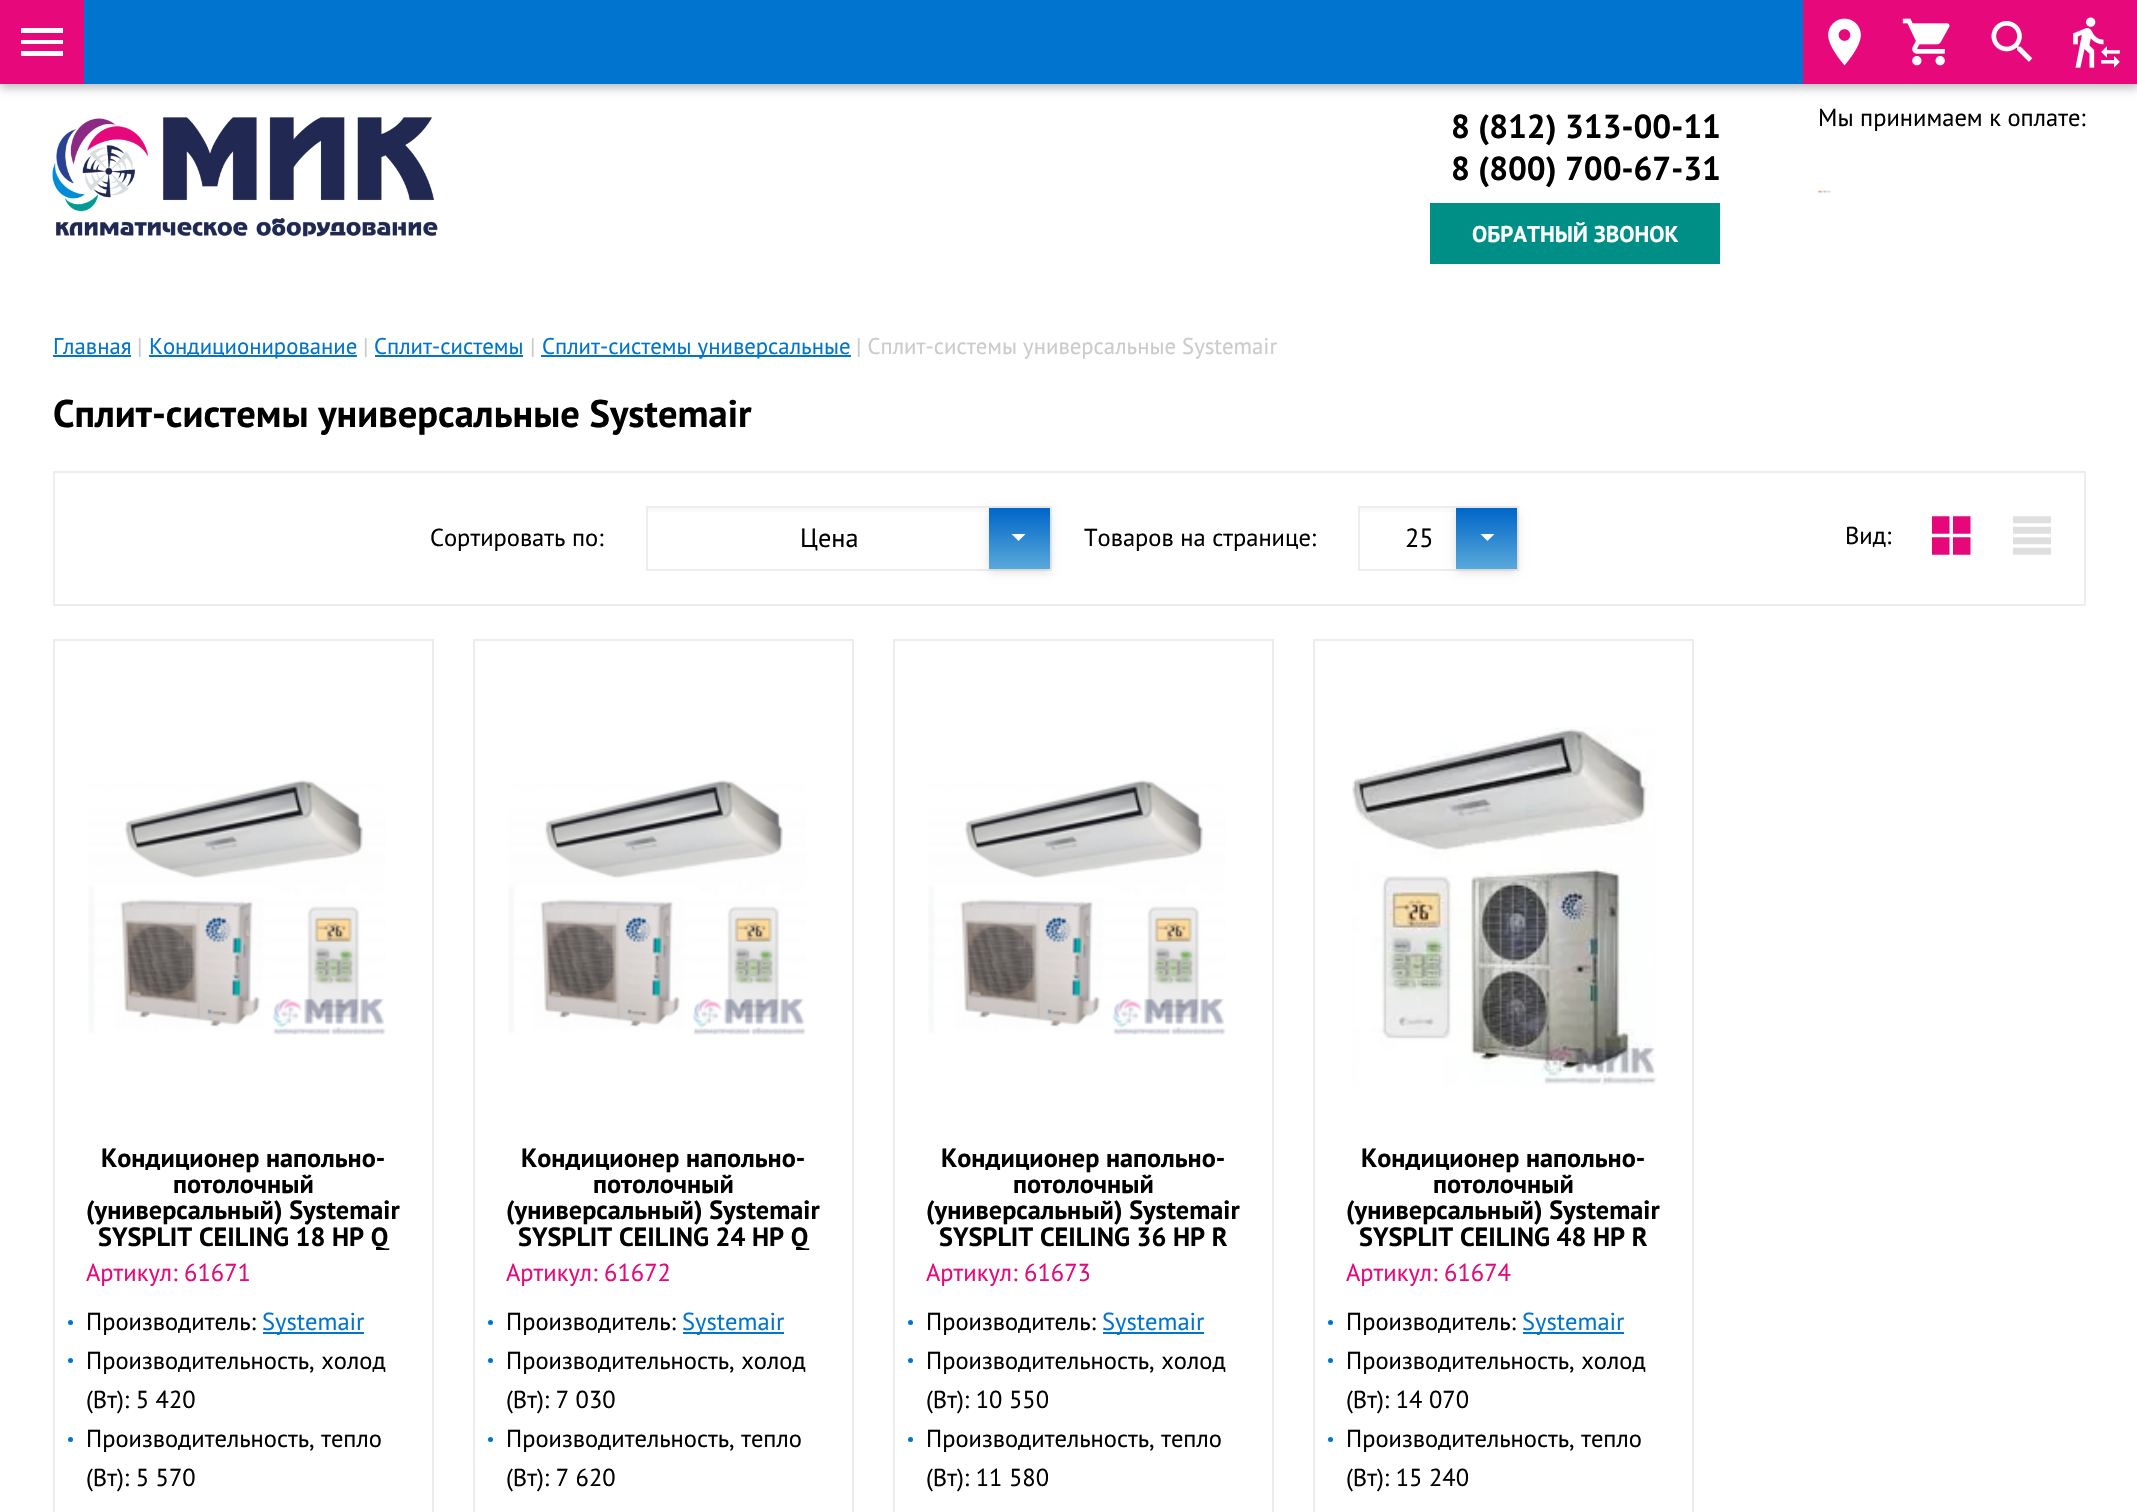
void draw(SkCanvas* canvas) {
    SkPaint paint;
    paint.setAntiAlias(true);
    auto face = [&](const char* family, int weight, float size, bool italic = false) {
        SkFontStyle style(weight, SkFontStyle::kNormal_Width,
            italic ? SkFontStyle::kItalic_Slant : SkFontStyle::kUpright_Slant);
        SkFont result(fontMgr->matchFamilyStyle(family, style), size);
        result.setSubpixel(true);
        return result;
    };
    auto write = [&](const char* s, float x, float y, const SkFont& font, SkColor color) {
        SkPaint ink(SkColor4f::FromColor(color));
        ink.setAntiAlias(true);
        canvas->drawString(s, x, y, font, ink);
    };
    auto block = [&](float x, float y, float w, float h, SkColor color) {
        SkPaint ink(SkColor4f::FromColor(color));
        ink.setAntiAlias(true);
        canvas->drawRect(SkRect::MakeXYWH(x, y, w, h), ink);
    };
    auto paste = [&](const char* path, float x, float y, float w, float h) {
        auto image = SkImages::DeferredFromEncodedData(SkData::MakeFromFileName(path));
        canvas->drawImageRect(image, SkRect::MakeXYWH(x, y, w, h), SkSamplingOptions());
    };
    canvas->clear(SK_ColorWHITE);
    paint.setColor(SkColorSetARGB(66, 0, 0, 0));
    paint.setMaskFilter(SkMaskFilter::MakeBlur(kNormal_SkBlurStyle, 4.5f));
    canvas->drawRect(SkRect::MakeXYWH(0, 4, 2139, 84), paint);
    paint.setMaskFilter(nullptr);
    block(84, 0, 1719, 84, SkColorSetRGB(0, 116, 206));
    block(0, 0, 84, 84, SkColorSetRGB(231, 8, 123));
    paint.setColor(SK_ColorWHITE);
    canvas->drawPath(SkPathBuilder().moveTo(21, 56).lineTo(63, 56).lineTo(63, 51).lineTo(21, 51).close().moveTo(21, 44).lineTo(63, 44).lineTo(63, 40).lineTo(21, 40).close().moveTo(21, 28).lineTo(21, 33).lineTo(63, 33).lineTo(63, 28).close().detach(), paint);
    block(1803, 0, 334, 84, SkColorSetRGB(231, 8, 123));
    paste("pic1.png", 1828, 18, 33, 48);
    paste("pic2.png", 1902, 18, 48, 48);
    paste("pic3.png", 1991, 21, 42, 41);
    paste("pic4.png", 2073, 17, 47, 51);
    paste("pic5.png", 52, 117, 386, 120);
    auto kFont1 = face("PT Sans", 700, 33.25f);
    write("8 (812) 313-00-11", 1451, 138, kFont1, SK_ColorBLACK);
    write("8 (800) 700‑67-31", 1451, 180, kFont1, SK_ColorBLACK);
    block(1430, 203, 290, 61, SkColorSetRGB(0, 143, 134));
    auto kFont2 = face("PT Sans", 700, 22.75f);
    write("ОБРАТНЫЙ ЗВОНОК", 1472, 242, kFont2, SK_ColorWHITE);
    auto kFont3 = face("PT Sans", 400, 24.5f);
    write("Мы принимаем к оплате:", 1818, 126, kFont3, SK_ColorBLACK);
    paste("pic6.png", 1818, 190, 13, 3);
    auto kFont4 = face("PT Sans", 400, 22.75f);
    write("Главная", 53, 354, kFont4, SkColorSetRGB(0, 116, 206));
    block(53, 355, 78, 2, SkColorSetRGB(0, 116, 206));
    write("|", 137, 354, kFont4, SkColorSetRGB(203, 203, 203));
    block(149, 355, 208, 2, SkColorSetRGB(0, 116, 206));
    write("Кондиционирование", 149, 354, kFont4, SkColorSetRGB(0, 116, 206));
    write("|", 363, 354, kFont4, SkColorSetRGB(203, 203, 203));
    write("Сплит-системы", 374, 354, kFont4, SkColorSetRGB(0, 116, 206));
    block(375, 355, 148, 2, SkColorSetRGB(0, 116, 206));
    write("|", 530, 354, kFont4, SkColorSetRGB(203, 203, 203));
    block(541, 355, 310, 2, SkColorSetRGB(0, 116, 206));
    write("Сплит-системы универсальные", 542, 354, kFont4, SkColorSetRGB(0, 116, 206));
    write("| Сплит-системы универсальные Systemair", 856, 354, kFont4, SkColorSetRGB(203, 203, 203));
    auto kFont5 = face("PT Sans", 700, 38.5f);
    write("Сплит-системы универсальные Systemair", 53, 427, kFont5, SK_ColorBLACK);
    paint.setStyle(SkPaint::kStroke_Style);
    paint.setStrokeWidth(2);
    paint.setColor(SkColorSetRGB(237, 237, 237));
    canvas->drawRect(SkRect::MakeXYWH(54, 472, 2031, 133), paint);
    write("Сортировать по:", 430, 546, kFont3, SK_ColorBLACK);
    block(648, 508, 341, 4, SkColorSetRGB(250, 250, 250));
    canvas->drawRect(SkRect::MakeXYWH(647, 507, 404, 63), paint);
    auto kFont6 = face("PT Sans", 400, 26.25f);
    write("Цена", 800, 547, kFont6, SK_ColorBLACK);
    paint.setStyle(SkPaint::kFill_Style);
    paint.setColor(SkColorSetARGB(33, 0, 0, 0));
    paint.setMaskFilter(SkMaskFilter::MakeBlur(kNormal_SkBlurStyle, 4.5f));
    canvas->drawRect(SkRect::MakeXYWH(989, 511, 61, 61), paint);
    paint.setMaskFilter(nullptr);
    {
        const SkColor colors[] = {SkColorSetRGB(90, 169, 218), SkColorSetRGB(0, 101, 200)};
        const float stops[] = {0, 1};
        const SkPoint ends[] = {{1019, 569}, {1019, 508}};
        paint.setShader(SkGradientShader::MakeLinear(ends, colors, stops, 2, SkTileMode::kClamp));
        paint.setAlpha(255);
    }
    canvas->drawRect(SkRect::MakeXYWH(989, 508, 61, 61), paint);
    paint.setShader(nullptr);
    paint.setColor(SK_ColorWHITE);
    canvas->drawPath(SkPathBuilder().moveTo(1011.5f, 534).lineTo(1025.5f, 534).lineTo(1018.5f, 541).close().detach(), paint);
    write("Товаров на странице:", 1084, 546, kFont3, SK_ColorBLACK);
    block(1360, 508, 96, 4, SkColorSetRGB(250, 250, 250));
    paint.setStyle(SkPaint::kStroke_Style);
    paint.setColor(SkColorSetRGB(237, 237, 237));
    canvas->drawRect(SkRect::MakeXYWH(1359, 507, 159, 63), paint);
    write("25", 1405, 547, kFont6, SK_ColorBLACK);
    paint.setStyle(SkPaint::kFill_Style);
    paint.setColor(SkColorSetARGB(33, 0, 0, 0));
    paint.setMaskFilter(SkMaskFilter::MakeBlur(kNormal_SkBlurStyle, 4.5f));
    canvas->drawRect(SkRect::MakeXYWH(1456, 511, 61, 61), paint);
    paint.setMaskFilter(nullptr);
    {
        const SkColor colors[] = {SkColorSetRGB(90, 169, 218), SkColorSetRGB(0, 101, 200)};
        const float stops[] = {0, 1};
        const SkPoint ends[] = {{1487, 569}, {1487, 508}};
        paint.setShader(SkGradientShader::MakeLinear(ends, colors, stops, 2, SkTileMode::kClamp));
        paint.setAlpha(255);
    }
    canvas->drawRect(SkRect::MakeXYWH(1456, 508, 61, 61), paint);
    paint.setShader(nullptr);
    paint.setColor(SK_ColorWHITE);
    canvas->drawPath(SkPathBuilder().moveTo(1480.5f, 534).lineTo(1494.5f, 534).lineTo(1487.5f, 541).close().detach(), paint);
    write("Вид:", 1845, 544, kFont3, SK_ColorBLACK);
    paste("pic7.png", 1932, 516, 39, 39);
    paste("pic8.png", 2013, 516, 38, 39);
    paint.setStyle(SkPaint::kStroke_Style);
    paint.setColor(SkColorSetRGB(236, 236, 236));
    canvas->drawRect(SkRect::MakeXYWH(54, 640, 379, 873), paint);
    paste("pic9.png", 88, 780, 298, 255);
    auto kFont7 = face("PT Sans", 700, 26.25f);
    write("Кондиционер напольно-", 101, 1167, kFont7, SK_ColorBLACK);
    write("потолочный", 173, 1193, kFont7, SK_ColorBLACK);
    write("(универсальный) Systemair", 86, 1219, kFont7, SK_ColorBLACK);
    canvas->save();
    canvas->clipRect(SkRect::MakeXYWH(86, 1145, 315, 105));
    write("SYSPLIT CEILING 18 HP Q", 98, 1246, kFont7, SK_ColorBLACK);
    canvas->restore();
    write("Артикул: 61671", 86, 1281, kFont3, SkColorSetRGB(231, 8, 123));
    paint.setStyle(SkPaint::kFill_Style);
    paint.setColor(SkColorSetRGB(0, 116, 206));
    canvas->drawCircle(70.5f, 1322.5f, 2.5f, paint);
    write("Производитель:", 86, 1330, kFont3, SK_ColorBLACK);
    block(263, 1332, 101, 2, SkColorSetRGB(0, 116, 206));
    write("Systemair", 262, 1330, kFont3, SkColorSetRGB(0, 116, 206));
    canvas->drawCircle(70.5f, 1360.5f, 2.5f, paint);
    write("Производительность, холод", 86, 1369, kFont3, SK_ColorBLACK);
    write("(Вт): 5 420", 86, 1408, kFont3, SK_ColorBLACK);
    canvas->drawCircle(70.5f, 1439.5f, 2.5f, paint);
    write("Производительность, тепло", 86, 1447, kFont3, SK_ColorBLACK);
    write("(Вт): 5 570", 86, 1486, kFont3, SK_ColorBLACK);
    paint.setStyle(SkPaint::kStroke_Style);
    paint.setColor(SkColorSetRGB(236, 236, 236));
    canvas->drawRect(SkRect::MakeXYWH(474, 640, 379, 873), paint);
    paste("pic10.png", 508, 780, 298, 255);
    write("Кондиционер напольно-", 521, 1167, kFont7, SK_ColorBLACK);
    write("потолочный", 593, 1193, kFont7, SK_ColorBLACK);
    write("(универсальный) Systemair", 506, 1219, kFont7, SK_ColorBLACK);
    canvas->save();
    canvas->clipRect(SkRect::MakeXYWH(506, 1145, 315, 105));
    write("SYSPLIT CEILING 24 HP Q", 518, 1246, kFont7, SK_ColorBLACK);
    canvas->restore();
    write("Артикул: 61672", 506, 1281, kFont3, SkColorSetRGB(231, 8, 123));
    paint.setStyle(SkPaint::kFill_Style);
    paint.setColor(SkColorSetRGB(0, 116, 206));
    canvas->drawCircle(490.5f, 1322.5f, 2.5f, paint);
    write("Производитель:", 506, 1330, kFont3, SK_ColorBLACK);
    block(683, 1332, 101, 2, SkColorSetRGB(0, 116, 206));
    write("Systemair", 682, 1330, kFont3, SkColorSetRGB(0, 116, 206));
    canvas->drawCircle(490.5f, 1360.5f, 2.5f, paint);
    write("Производительность, холод", 506, 1369, kFont3, SK_ColorBLACK);
    write("(Вт): 7 030", 506, 1408, kFont3, SK_ColorBLACK);
    canvas->drawCircle(490.5f, 1439.5f, 2.5f, paint);
    write("Производительность, тепло", 506, 1447, kFont3, SK_ColorBLACK);
    write("(Вт): 7 620", 506, 1486, kFont3, SK_ColorBLACK);
    paint.setStyle(SkPaint::kStroke_Style);
    paint.setColor(SkColorSetRGB(236, 236, 236));
    canvas->drawRect(SkRect::MakeXYWH(894, 640, 379, 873), paint);
    paste("pic10.png", 928, 780, 298, 255);
    write("Кондиционер напольно-", 941, 1167, kFont7, SK_ColorBLACK);
    write("потолочный", 1013, 1193, kFont7, SK_ColorBLACK);
    write("(универсальный) Systemair", 926, 1219, kFont7, SK_ColorBLACK);
    write("SYSPLIT CEILING 36 HP R", 939, 1246, kFont7, SK_ColorBLACK);
    write("Артикул: 61673", 926, 1281, kFont3, SkColorSetRGB(231, 8, 123));
    paint.setStyle(SkPaint::kFill_Style);
    paint.setColor(SkColorSetRGB(0, 116, 206));
    canvas->drawCircle(910.5f, 1322.5f, 2.5f, paint);
    write("Производитель:", 926, 1330, kFont3, SK_ColorBLACK);
    block(1103, 1332, 101, 2, SkColorSetRGB(0, 116, 206));
    write("Systemair", 1102, 1330, kFont3, SkColorSetRGB(0, 116, 206));
    canvas->drawCircle(910.5f, 1360.5f, 2.5f, paint);
    write("Производительность, холод", 926, 1369, kFont3, SK_ColorBLACK);
    write("(Вт): 10 550", 926, 1408, kFont3, SK_ColorBLACK);
    canvas->drawCircle(910.5f, 1439.5f, 2.5f, paint);
    write("Производительность, тепло", 926, 1447, kFont3, SK_ColorBLACK);
    write("(Вт): 11 580", 926, 1486, kFont3, SK_ColorBLACK);
    paint.setStyle(SkPaint::kStroke_Style);
    paint.setColor(SkColorSetRGB(236, 236, 236));
    canvas->drawRect(SkRect::MakeXYWH(1314, 640, 379, 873), paint);
    paste("pic11.png", 1352, 727, 305, 359);
    write("Кондиционер напольно-", 1361, 1167, kFont7, SK_ColorBLACK);
    write("потолочный", 1433, 1193, kFont7, SK_ColorBLACK);
    write("(универсальный) Systemair", 1346, 1219, kFont7, SK_ColorBLACK);
    write("SYSPLIT CEILING 48 HP R", 1359, 1246, kFont7, SK_ColorBLACK);
    write("Артикул: 61674", 1346, 1281, kFont3, SkColorSetRGB(231, 8, 123));
    paint.setStyle(SkPaint::kFill_Style);
    paint.setColor(SkColorSetRGB(0, 116, 206));
    canvas->drawCircle(1330.5f, 1322.5f, 2.5f, paint);
    write("Производитель:", 1346, 1330, kFont3, SK_ColorBLACK);
    block(1523, 1332, 101, 2, SkColorSetRGB(0, 116, 206));
    write("Systemair", 1522, 1330, kFont3, SkColorSetRGB(0, 116, 206));
    canvas->drawCircle(1330.5f, 1360.5f, 2.5f, paint);
    write("Производительность, холод", 1346, 1369, kFont3, SK_ColorBLACK);
    write("(Вт): 14 070", 1346, 1408, kFont3, SK_ColorBLACK);
    canvas->drawCircle(1330.5f, 1439.5f, 2.5f, paint);
    write("Производительность, тепло", 1346, 1447, kFont3, SK_ColorBLACK);
    write("(Вт): 15 240", 1346, 1486, kFont3, SK_ColorBLACK);
}
